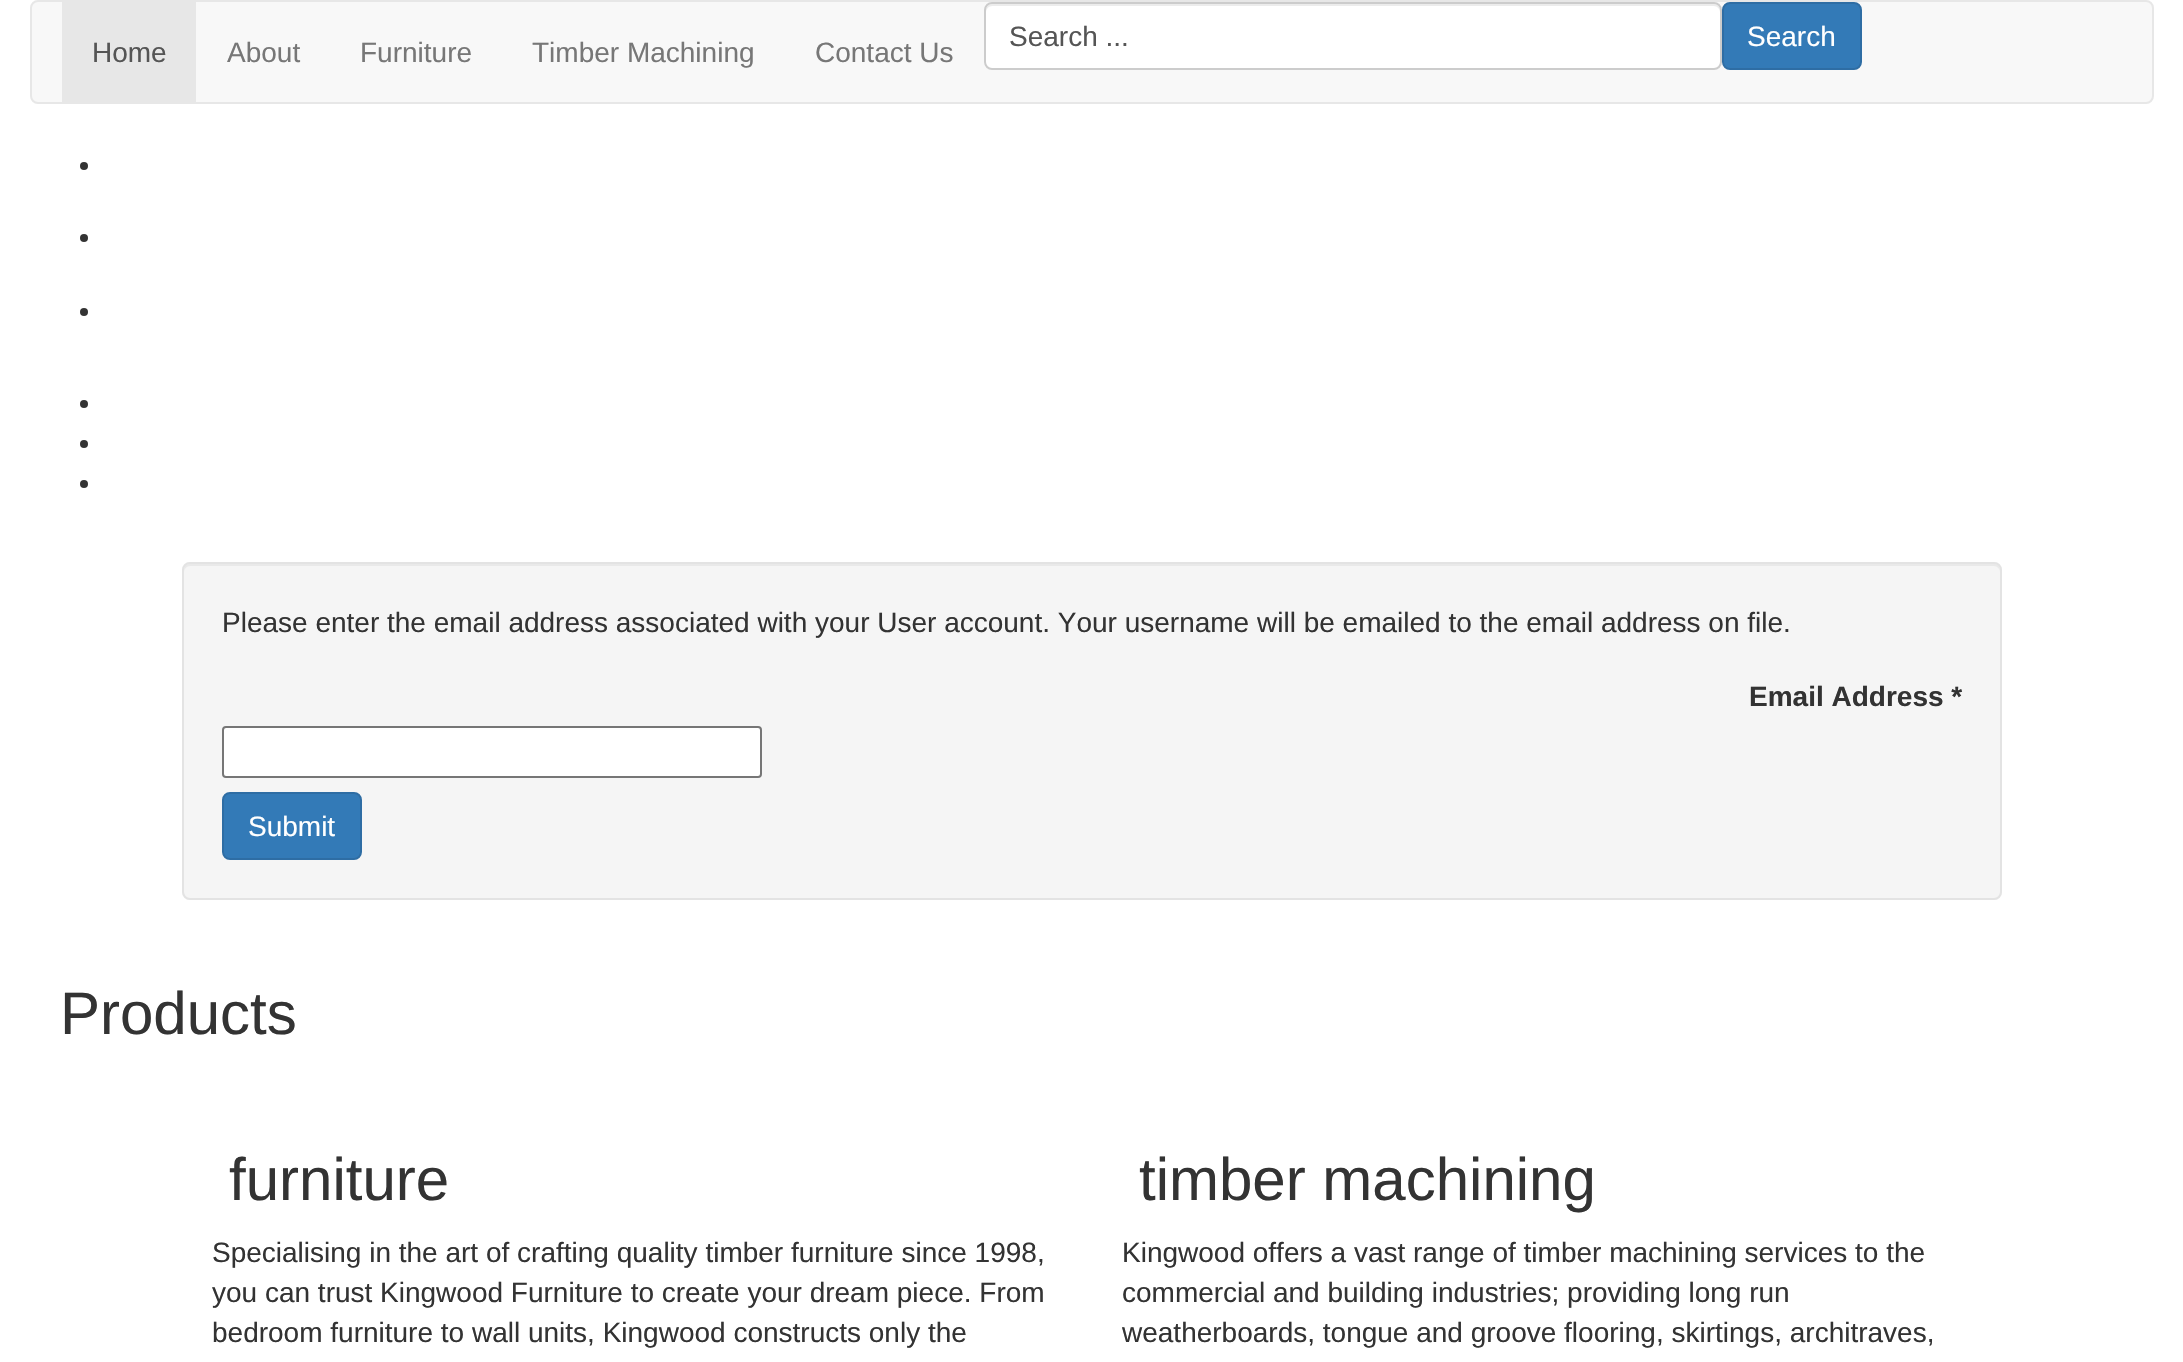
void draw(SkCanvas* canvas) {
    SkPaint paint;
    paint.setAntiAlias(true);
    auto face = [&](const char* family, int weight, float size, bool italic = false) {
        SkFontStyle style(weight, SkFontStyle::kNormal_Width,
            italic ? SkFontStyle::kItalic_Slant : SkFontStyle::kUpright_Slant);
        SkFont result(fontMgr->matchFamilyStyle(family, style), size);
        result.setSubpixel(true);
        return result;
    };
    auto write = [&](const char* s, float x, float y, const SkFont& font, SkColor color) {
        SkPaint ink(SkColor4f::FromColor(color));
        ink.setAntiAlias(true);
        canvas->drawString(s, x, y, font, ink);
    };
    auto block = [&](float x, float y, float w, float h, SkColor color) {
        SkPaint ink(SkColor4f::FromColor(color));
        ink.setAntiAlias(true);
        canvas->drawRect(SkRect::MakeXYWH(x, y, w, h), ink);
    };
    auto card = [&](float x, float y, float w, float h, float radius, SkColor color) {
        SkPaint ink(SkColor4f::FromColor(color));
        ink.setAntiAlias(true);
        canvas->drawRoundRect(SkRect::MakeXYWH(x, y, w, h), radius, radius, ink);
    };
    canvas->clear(SK_ColorWHITE);
    paint.setColor(SkColorSetRGB(248, 248, 248));
    canvas->drawRoundRect(SkRect::MakeXYWH(31, 1, 2122, 102), 7, 7, paint);
    paint.setStyle(SkPaint::kStroke_Style);
    paint.setStrokeWidth(2);
    paint.setColor(SkColorSetRGB(231, 231, 231));
    canvas->drawRoundRect(SkRect::MakeXYWH(31, 1, 2122, 102), 7, 7, paint);
    card(984, 2, 738, 68, 8, SK_ColorWHITE);
    paint.setStyle(SkPaint::kFill_Style);
    paint.setColor(SkColorSetRGB(236, 236, 236));
    canvas->drawPath(SkPathBuilder().moveTo(992, 6).lineTo(1714, 6).cubicTo(1717, 6, 1720, 9, 1720, 12).lineTo(1720, 10).cubicTo(1720, 7, 1717, 4, 1714, 4).lineTo(992, 4).cubicTo(989, 4, 986, 7, 986, 10).lineTo(986, 12).cubicTo(986, 9, 989, 6, 992, 6).close().detach(), paint);
    paint.setStyle(SkPaint::kStroke_Style);
    paint.setColor(SkColorSetRGB(204, 204, 204));
    canvas->drawRoundRect(SkRect::MakeXYWH(985, 3, 736, 66), 7, 7, paint);
    auto kFont1 = face("Liberation Sans", 400, 28);
    write("Search ...", 1009, 46, kFont1, SkColorSetRGB(85, 85, 85));
    paint.setStyle(SkPaint::kFill_Style);
    paint.setColor(SkColorSetRGB(51, 122, 183));
    canvas->drawRoundRect(SkRect::MakeXYWH(1723, 3, 138, 66), 7, 7, paint);
    paint.setStyle(SkPaint::kStroke_Style);
    paint.setColor(SkColorSetRGB(46, 109, 164));
    canvas->drawRoundRect(SkRect::MakeXYWH(1723, 3, 138, 66), 7, 7, paint);
    write("Search", 1747, 46, kFont1, SK_ColorWHITE);
    block(62, 2, 134, 100, SkColorSetRGB(231, 231, 231));
    write("Home", 92, 62, kFont1, SkColorSetRGB(85, 85, 85));
    write("About", 227, 62, kFont1, SkColorSetRGB(119, 119, 119));
    write("Furniture", 360, 62, kFont1, SkColorSetRGB(119, 119, 119));
    write("Timber Machining", 532, 62, kFont1, SkColorSetRGB(119, 119, 119));
    write("Contact Us", 815, 62, kFont1, SkColorSetRGB(119, 119, 119));
    paint.setStyle(SkPaint::kFill_Style);
    paint.setColor(SkColorSetRGB(51, 51, 51));
    canvas->drawCircle(84, 166, 4, paint);
    canvas->drawCircle(84, 238, 4, paint);
    canvas->drawCircle(84, 312, 4, paint);
    canvas->drawCircle(84, 404, 4, paint);
    canvas->drawCircle(84, 444, 4, paint);
    canvas->drawCircle(84, 484, 4, paint);
    card(182, 562, 1820, 338, 8, SkColorSetRGB(245, 245, 245));
    paint.setColor(SkColorSetRGB(233, 233, 233));
    canvas->drawPath(SkPathBuilder().moveTo(190, 566).lineTo(1994, 566).cubicTo(1997, 566, 2000, 569, 2000, 572).cubicTo(2000, 568, 1999, 564, 1994, 564).lineTo(190, 564).cubicTo(185, 564, 184, 568, 184, 572).cubicTo(184, 569, 187, 566, 190, 566).close().detach(), paint);
    paint.setStyle(SkPaint::kStroke_Style);
    paint.setColor(SkColorSetRGB(227, 227, 227));
    canvas->drawRoundRect(SkRect::MakeXYWH(183, 563, 1818, 336), 7, 7, paint);
    write("Please enter the email address associated with your User account. Your username will be emailed to the email address on file.", 222, 632, kFont1, SkColorSetRGB(51, 51, 51));
    auto kFont2 = face("Liberation Sans", 700, 28);
    write("Email Address *", 1749, 706, kFont2, SkColorSetRGB(51, 51, 51));
    paint.setStyle(SkPaint::kFill_Style);
    paint.setColor(SK_ColorWHITE);
    canvas->drawRoundRect(SkRect::MakeXYWH(223, 727, 538, 50), 3, 3, paint);
    paint.setStyle(SkPaint::kStroke_Style);
    paint.setColor(SkColorSetRGB(118, 118, 118));
    canvas->drawRoundRect(SkRect::MakeXYWH(223, 727, 538, 50), 3, 3, paint);
    paint.setStyle(SkPaint::kFill_Style);
    paint.setColor(SkColorSetRGB(51, 122, 183));
    canvas->drawRoundRect(SkRect::MakeXYWH(223, 793, 138, 66), 7, 7, paint);
    paint.setStyle(SkPaint::kStroke_Style);
    paint.setColor(SkColorSetRGB(46, 109, 164));
    canvas->drawRoundRect(SkRect::MakeXYWH(223, 793, 138, 66), 7, 7, paint);
    write("Submit", 248, 836, kFont1, SK_ColorWHITE);
    auto kFont3 = face("Liberation Sans", 400, 60);
    write("Products", 60, 1034, kFont3, SkColorSetRGB(51, 51, 51));
    write("furniture", 229, 1200, kFont3, SkColorSetRGB(51, 51, 51));
    write("Specialising in the art of crafting quality timber furniture since 1998,", 212, 1262, kFont1, SkColorSetRGB(51, 51, 51));
    write("you can trust Kingwood Furniture to create your dream piece. From", 212, 1302, kFont1, SkColorSetRGB(51, 51, 51));
    write("bedroom furniture to wall units, Kingwood constructs only the", 212, 1342, kFont1, SkColorSetRGB(51, 51, 51));
    write("timber machining", 1139, 1200, kFont3, SkColorSetRGB(51, 51, 51));
    write("Kingwood offers a vast range of timber machining services to the", 1122, 1262, kFont1, SkColorSetRGB(51, 51, 51));
    write("commercial and building industries; providing long run", 1122, 1302, kFont1, SkColorSetRGB(51, 51, 51));
    write("weatherboards, tongue and groove flooring, skirtings, architraves,", 1122, 1342, kFont1, SkColorSetRGB(51, 51, 51));
}
